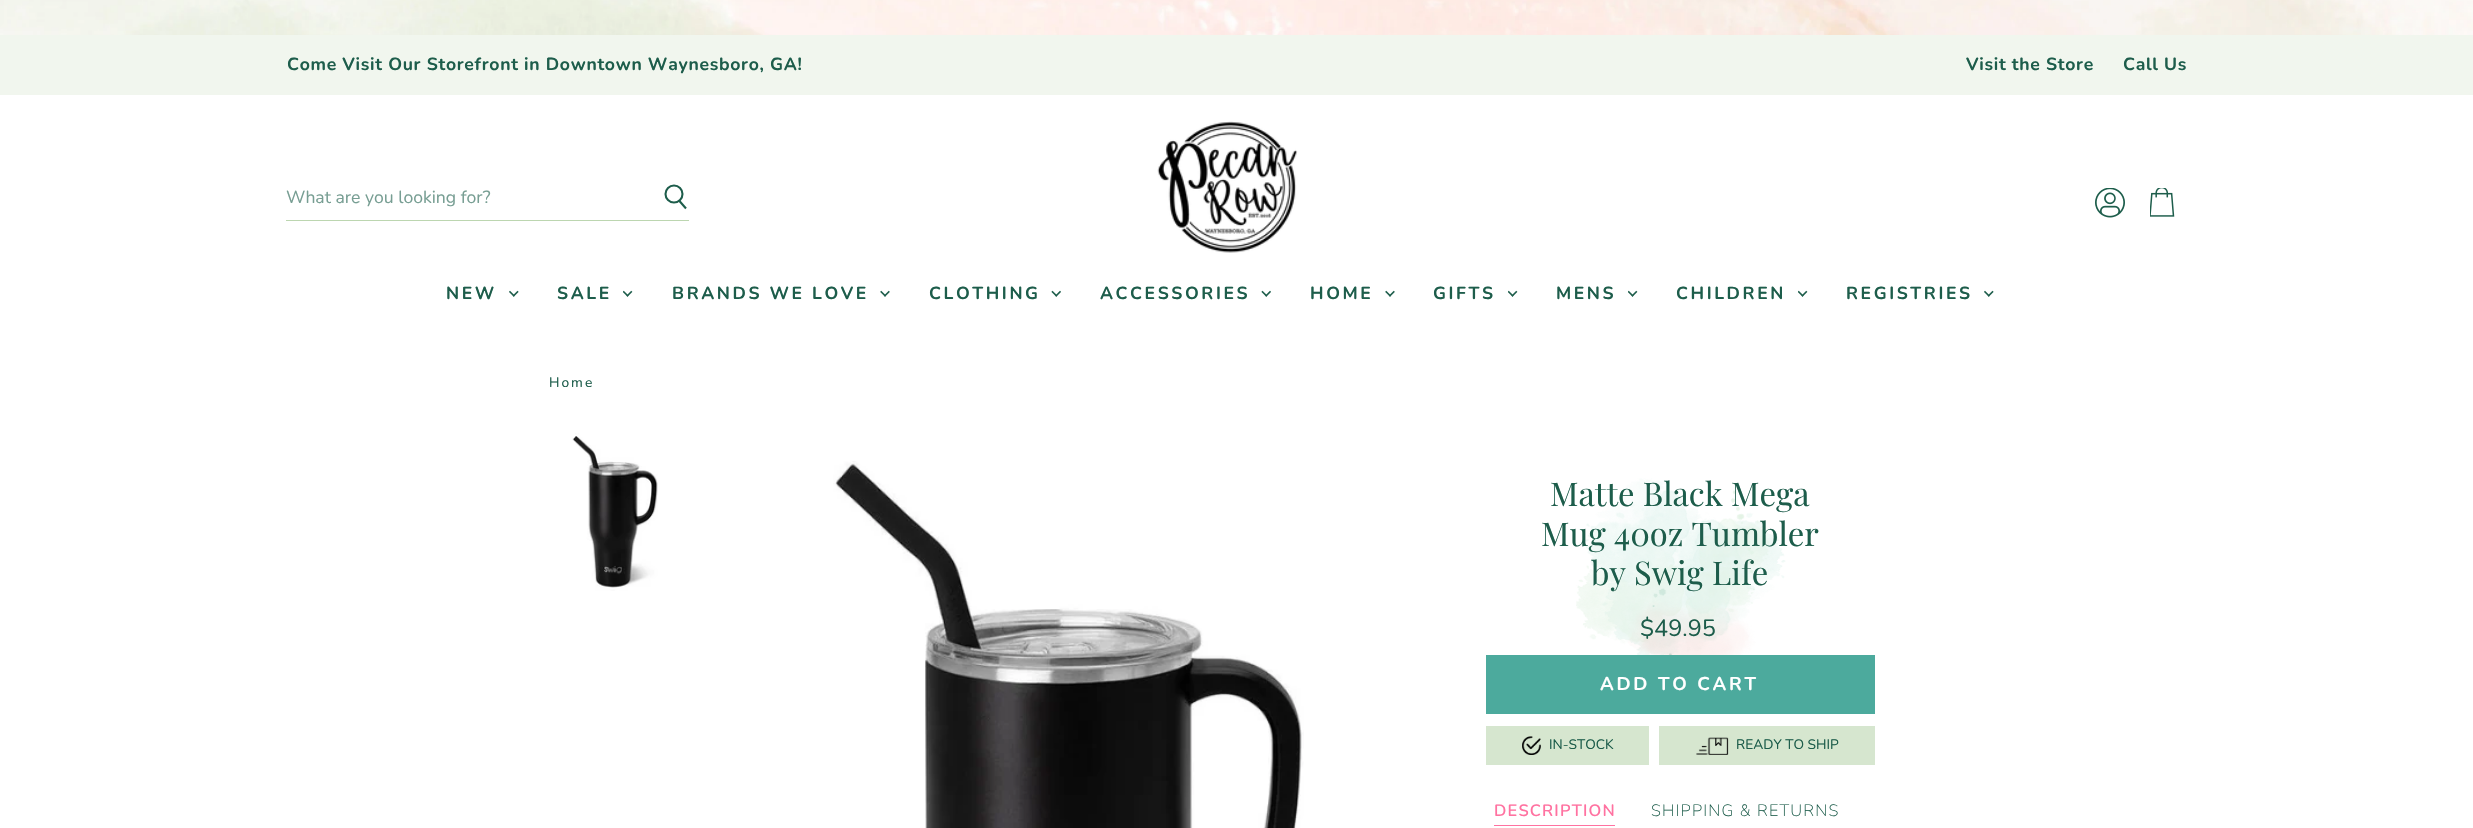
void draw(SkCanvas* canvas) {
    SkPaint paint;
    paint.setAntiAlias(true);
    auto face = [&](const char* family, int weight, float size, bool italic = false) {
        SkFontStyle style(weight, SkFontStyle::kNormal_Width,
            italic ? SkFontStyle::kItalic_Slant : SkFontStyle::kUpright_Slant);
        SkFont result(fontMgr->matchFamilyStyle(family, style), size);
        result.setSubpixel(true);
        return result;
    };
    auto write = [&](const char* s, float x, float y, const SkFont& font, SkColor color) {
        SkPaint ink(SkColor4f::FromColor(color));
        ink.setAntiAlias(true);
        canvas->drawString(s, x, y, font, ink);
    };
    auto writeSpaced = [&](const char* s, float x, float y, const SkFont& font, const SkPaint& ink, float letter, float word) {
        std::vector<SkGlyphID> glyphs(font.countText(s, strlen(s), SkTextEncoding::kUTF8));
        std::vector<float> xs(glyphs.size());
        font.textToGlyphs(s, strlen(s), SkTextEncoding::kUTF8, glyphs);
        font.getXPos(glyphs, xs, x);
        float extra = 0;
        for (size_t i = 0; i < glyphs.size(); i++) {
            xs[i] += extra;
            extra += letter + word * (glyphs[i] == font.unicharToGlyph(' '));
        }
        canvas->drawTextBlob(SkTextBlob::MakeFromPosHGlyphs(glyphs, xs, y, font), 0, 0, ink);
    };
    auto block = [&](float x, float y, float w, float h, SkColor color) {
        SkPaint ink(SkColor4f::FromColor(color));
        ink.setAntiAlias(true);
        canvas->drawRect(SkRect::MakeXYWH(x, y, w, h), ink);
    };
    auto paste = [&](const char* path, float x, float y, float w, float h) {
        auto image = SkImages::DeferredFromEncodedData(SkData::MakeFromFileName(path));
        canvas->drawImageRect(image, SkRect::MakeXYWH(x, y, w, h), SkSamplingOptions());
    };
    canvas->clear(SK_ColorWHITE);
    paste("pic1.png", 0, 0, 2473, 35);
    block(0, 35, 2473, 60, SkColorSetRGB(241, 246, 238));
    auto kFont1 = face("Nunito", 700, 17.6f);
    paint.setColor(SkColorSetRGB(29, 93, 75));
    writeSpaced("Come Visit Our Storefront in Downtown Waynesboro, GA!", 287, 70, kFont1, paint, 0.7f, 0);
    writeSpaced("Visit the Store", 1966, 70, kFont1, paint, 0.7f, 0);
    writeSpaced("Call Us", 2123, 70, kFont1, paint, 0.7f, 0);
    block(286, 220, 403, 1, SkColorSetRGB(188, 214, 176));
    auto kFont2 = face("Nunito", 400, 17.6f);
    write("What are you looking for?", 286, 203, kFont2, SkColorSetRGB(119, 158, 147));
    paint.setStyle(SkPaint::kStroke_Style);
    paint.setStrokeWidth(2.1f);
    canvas->drawPath(SkPathBuilder().moveTo(686, 208.5f).lineTo(679, 200.5f).detach(), paint);
    canvas->drawCircle(674, 194, 8.5f, paint);
    paste("pic2.png", 1157, 121, 141, 132);
    paste("pic3.png", 2095, 188, 30, 30);
    paste("pic4.png", 2150, 188, 25, 29);
    auto kFont3 = face("Nunito", 700, 17.5f);
    paint.setStyle(SkPaint::kFill_Style);
    writeSpaced("NEW", 446, 299, kFont3, paint, 2.6f, 0);
    paste("pic5.png", 509, 290, 10, 7);
    writeSpaced("SALE", 557, 299, kFont3, paint, 2.6f, 0);
    paste("pic6.png", 623, 290, 10, 7);
    writeSpaced("BRANDS WE LOVE", 672, 299, kFont3, paint, 2.6f, 0);
    paste("pic7.png", 880, 290, 10, 7);
    writeSpaced("CLOTHING", 929, 299, kFont3, paint, 2.6f, 0);
    paste("pic8.png", 1051, 290, 10, 7);
    writeSpaced("ACCESSORIES", 1100, 299, kFont3, paint, 2.6f, 0);
    paste("pic8.png", 1261, 290, 10, 7);
    writeSpaced("HOME", 1310, 299, kFont3, paint, 2.6f, 0);
    paste("pic7.png", 1385, 290, 10, 7);
    writeSpaced("GIFTS", 1433, 299, kFont3, paint, 2.6f, 0);
    paste("pic6.png", 1508, 290, 10, 7);
    writeSpaced("MENS", 1556, 299, kFont3, paint, 2.6f, 0);
    paste("pic6.png", 1628, 290, 10, 7);
    writeSpaced("CHILDREN", 1676, 299, kFont3, paint, 2.6f, 0);
    paste("pic6.png", 1798, 290, 10, 7);
    writeSpaced("REGISTRIES", 1846, 299, kFont3, paint, 2.6f, 0);
    paste("pic5.png", 1984, 290, 10, 7);
    auto kFont4 = face("Nunito", 400, 13.75f);
    writeSpaced("Home", 549, 387, kFont4, paint, 2, 0);
    paste("pic9.png", 572, 433, 86, 158);
    paste("pic10.png", 833, 461, 471, 367);
    paste("pic11.png", 1576, 478, 210, 177);
    auto kFont5 = face("Playfair Display", 400, 32.75f);
    write("Matte Black Mega", 1550, 506, kFont5, SkColorSetRGB(29, 93, 75));
    write("Mug 40oz Tumbler", 1541, 546, kFont5, SkColorSetRGB(29, 93, 75));
    write("by Swig Life", 1591, 585, kFont5, SkColorSetRGB(29, 93, 75));
    auto kFont6 = face("Nunito", 400, 23.5f);
    write("$49.95", 1640, 636, kFont6, SkColorSetRGB(29, 93, 75));
    block(1486, 655, 389, 59, SkColorSetRGB(76, 170, 157));
    auto kFont7 = face("Nunito", 700, 18.5f);
    paint.setColor(SK_ColorWHITE);
    writeSpaced("ADD TO CART", 1600, 690, kFont7, paint, 2.75f, 0);
    block(1486, 726, 163, 39, SkColorSetRGB(214, 230, 207));
    paste("pic12.png", 1522, 736, 19, 19);
    write("IN-STOCK", 1549, 749, kFont4, SkColorSetRGB(29, 93, 75));
    block(1659, 726, 216, 39, SkColorSetRGB(214, 230, 207));
    paste("pic13.png", 1696, 737, 33, 18);
    write("READY TO SHIP", 1736, 749, kFont4, SkColorSetRGB(29, 93, 75));
    block(1494, 825, 121, 1, SkColorSetRGB(255, 114, 161));
    auto kFont8 = face("Nunito", 600, 16.4f);
    paint.setColor(SkColorSetRGB(255, 114, 161));
    writeSpaced("DESCRIPTION", 1494, 816, kFont8, paint, 1.2f, 0);
    auto kFont9 = face("Nunito", 200, 16.4f);
    paint.setColor(SkColorSetRGB(29, 93, 75));
    writeSpaced("SHIPPING & RETURNS", 1651, 816, kFont9, paint, 1.2f, 0);
}
